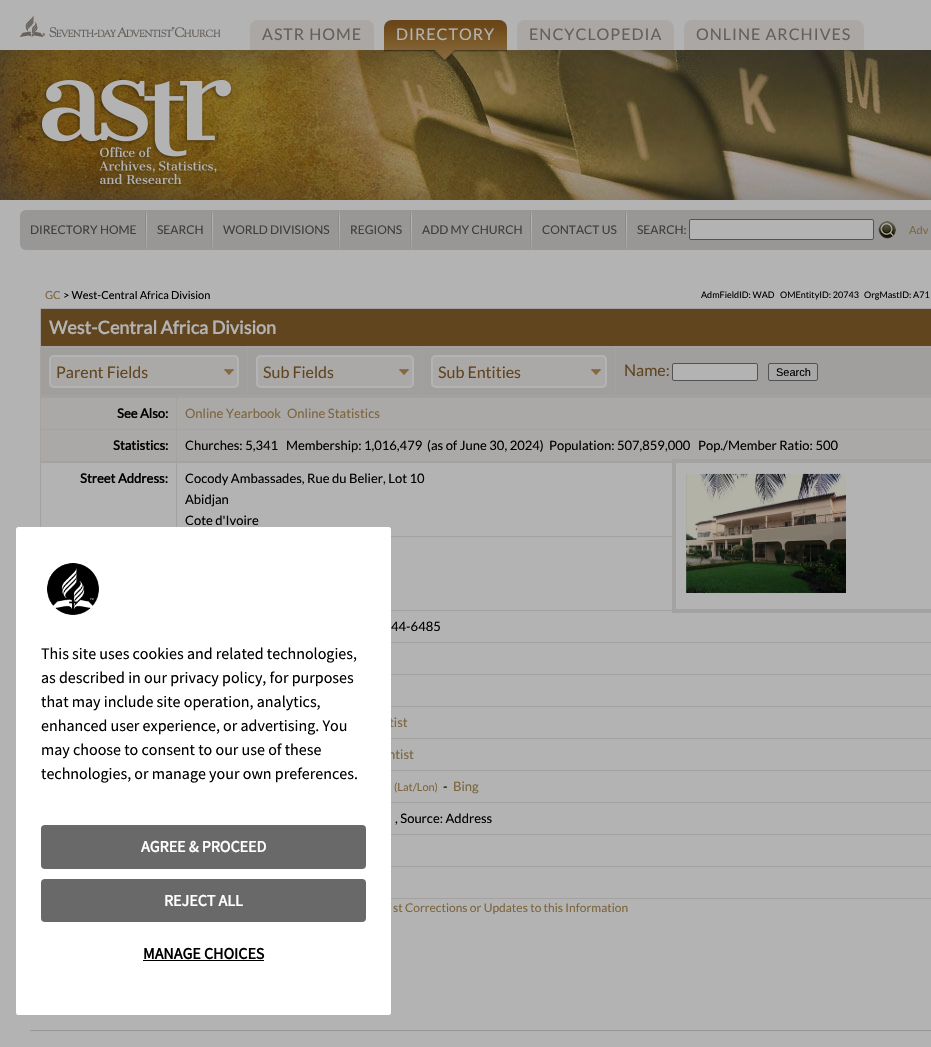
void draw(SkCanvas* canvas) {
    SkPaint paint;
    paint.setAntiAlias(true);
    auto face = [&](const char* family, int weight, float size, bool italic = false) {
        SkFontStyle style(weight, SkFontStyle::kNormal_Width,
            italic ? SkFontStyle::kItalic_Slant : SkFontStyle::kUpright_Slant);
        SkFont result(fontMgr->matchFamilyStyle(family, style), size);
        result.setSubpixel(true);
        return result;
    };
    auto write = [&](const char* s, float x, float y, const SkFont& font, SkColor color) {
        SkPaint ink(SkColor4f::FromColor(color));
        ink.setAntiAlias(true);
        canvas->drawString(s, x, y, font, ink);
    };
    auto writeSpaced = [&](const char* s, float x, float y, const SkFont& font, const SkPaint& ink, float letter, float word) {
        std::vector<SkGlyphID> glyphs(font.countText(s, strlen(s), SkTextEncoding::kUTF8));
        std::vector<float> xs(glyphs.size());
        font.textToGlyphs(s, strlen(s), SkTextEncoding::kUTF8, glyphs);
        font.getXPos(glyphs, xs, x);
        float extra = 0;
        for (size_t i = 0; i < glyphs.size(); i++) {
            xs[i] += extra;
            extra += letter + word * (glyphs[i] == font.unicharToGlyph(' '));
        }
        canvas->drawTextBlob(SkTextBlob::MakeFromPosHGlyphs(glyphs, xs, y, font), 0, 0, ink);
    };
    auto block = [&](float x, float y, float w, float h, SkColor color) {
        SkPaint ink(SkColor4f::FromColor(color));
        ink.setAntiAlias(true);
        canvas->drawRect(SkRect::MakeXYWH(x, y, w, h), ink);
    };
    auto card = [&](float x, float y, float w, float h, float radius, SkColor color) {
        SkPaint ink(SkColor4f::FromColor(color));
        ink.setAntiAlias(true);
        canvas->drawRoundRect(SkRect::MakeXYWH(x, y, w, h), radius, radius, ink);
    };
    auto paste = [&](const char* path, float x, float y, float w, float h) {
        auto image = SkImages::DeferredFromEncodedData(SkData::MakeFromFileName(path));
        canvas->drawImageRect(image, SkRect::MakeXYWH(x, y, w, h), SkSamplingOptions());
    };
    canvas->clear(SkColorSetRGB(179, 179, 179));
    paste("pic1.png", 0, 50, 931, 150);
    paste("pic2.png", 20, 15, 200, 22);
    paste("pic3.png", 39, 78, 194, 109);
    paste("pic4.png", 250, 20, 124, 30);
    auto kFont1 = face("Lato", 400, 16);
    paint.setColor(SkColorSetRGB(99, 96, 92));
    writeSpaced("ASTR HOME", 262, 40, kFont1, paint, 1, 0);
    paste("pic5.png", 384, 20, 123, 42);
    paint.setColor(SkColorSetRGB(179, 179, 179));
    writeSpaced("DIRECTORY", 396, 40, kFont1, paint, 1, 0);
    paste("pic6.png", 517, 20, 157, 30);
    paint.setColor(SkColorSetRGB(99, 96, 92));
    writeSpaced("ENCYCLOPEDIA", 529, 40, kFont1, paint, 1, 0);
    paste("pic7.png", 684, 20, 180, 30);
    writeSpaced("ONLINE ARCHIVES", 696, 40, kFont1, paint, 1, 0);
    card(20, 210, 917, 40, 6, SkColorSetRGB(152, 151, 150));
    paste("pic8.png", 145, 211, 2, 39);
    auto kFont2 = face("Lato", 400, 12);
    write("DIRECTORY HOME", 30, 234, kFont2, SkColorSetRGB(63, 62, 59));
    paste("pic8.png", 211, 211, 2, 39);
    write("SEARCH", 157, 234, kFont2, SkColorSetRGB(63, 62, 59));
    paste("pic8.png", 338, 211, 2, 39);
    write("WORLD DIVISIONS", 223, 234, kFont2, SkColorSetRGB(63, 62, 59));
    paste("pic8.png", 410, 211, 2, 39);
    write("REGIONS", 350, 234, kFont2, SkColorSetRGB(63, 62, 59));
    paste("pic8.png", 530, 211, 2, 39);
    write("ADD MY CHURCH", 422, 234, kFont2, SkColorSetRGB(63, 62, 59));
    paste("pic8.png", 625, 211, 2, 39);
    write("CONTACT US", 542, 234, kFont2, SkColorSetRGB(63, 62, 59));
    write("SEARCH:", 637, 234, kFont2, SkColorSetRGB(63, 62, 59));
    paint.setColor(SkColorSetRGB(179, 179, 179));
    canvas->drawRoundRect(SkRect::MakeXYWH(689.5f, 219.5f, 184, 20), 1.5f, 1.5f, paint);
    paint.setStyle(SkPaint::kStroke_Style);
    paint.setStrokeWidth(1);
    paint.setColor(SkColorSetRGB(83, 83, 83));
    canvas->drawRoundRect(SkRect::MakeXYWH(689.5f, 219.5f, 184, 20), 1.5f, 1.5f, paint);
    paste("pic9.png", 878, 221, 18, 18);
    auto kFont3 = face("Lato", 400, 11);
    write("Adv", 909, 234, kFont3, SkColorSetRGB(124, 102, 61));
    write("GC", 45, 299, kFont3, SkColorSetRGB(124, 102, 61));
    write("> West-Central Africa Division", 63, 299, kFont3, SK_ColorBLACK);
    auto kFont4 = face("Lato", 400, 9);
    write("AdmFieldID: WAD", 701, 298, kFont4, SK_ColorBLACK);
    write("OMEntityID: 20743", 780, 298, kFont4, SK_ColorBLACK);
    write("OrgMastID: A71", 864, 298, kFont4, SK_ColorBLACK);
    block(40, 308, 891, 1, SkColorSetRGB(163, 162, 160));
    block(40, 308, 1, 39, SkColorSetRGB(163, 162, 160));
    block(41, 309, 890, 37, SkColorSetRGB(97, 69, 31));
    block(41, 346, 890, 1, SkColorSetRGB(163, 162, 160));
    auto kFont5 = face("Lato", 700, 18);
    write("West-Central Africa Division", 49, 334, kFont5, SkColorSetRGB(179, 179, 179));
    block(40, 347, 891, 1, SkColorSetRGB(163, 162, 160));
    block(40, 347, 1, 49, SkColorSetRGB(163, 162, 160));
    block(41, 348, 206, 47, SkColorSetRGB(160, 159, 157));
    block(247, 348, 1, 48, SkColorSetRGB(163, 162, 160));
    block(41, 395, 207, 1, SkColorSetRGB(163, 162, 160));
    card(49, 355, 190, 33, 5, SkColorSetRGB(171, 169, 168));
    paste("pic10.png", 224, 369, 10, 6);
    paint.setStrokeWidth(2);
    paint.setColor(SkColorSetRGB(179, 179, 179));
    canvas->drawRoundRect(SkRect::MakeXYWH(50, 356, 188, 31), 4, 4, paint);
    write("Parent Fields", 56, 378, kFont1, SkColorSetRGB(97, 69, 31));
    block(248, 348, 174, 47, SkColorSetRGB(160, 159, 157));
    block(422, 348, 1, 48, SkColorSetRGB(163, 162, 160));
    block(248, 395, 175, 1, SkColorSetRGB(163, 162, 160));
    card(256, 355, 158, 33, 5, SkColorSetRGB(171, 169, 168));
    paste("pic10.png", 399, 369, 10, 6);
    canvas->drawRoundRect(SkRect::MakeXYWH(257, 356, 156, 31), 4, 4, paint);
    write("Sub Fields", 263, 378, kFont1, SkColorSetRGB(97, 69, 31));
    block(423, 348, 192, 47, SkColorSetRGB(160, 159, 157));
    block(615, 348, 1, 48, SkColorSetRGB(163, 162, 160));
    block(423, 395, 508, 1, SkColorSetRGB(163, 162, 160));
    card(431, 355, 176, 33, 5, SkColorSetRGB(171, 169, 168));
    paste("pic10.png", 591, 369, 10, 6);
    canvas->drawRoundRect(SkRect::MakeXYWH(432, 356, 174, 31), 4, 4, paint);
    write("Sub Entities", 438, 378, kFont1, SkColorSetRGB(97, 69, 31));
    block(616, 348, 315, 47, SkColorSetRGB(160, 159, 157));
    write("Name:", 624, 376, kFont1, SkColorSetRGB(97, 69, 31));
    paint.setStyle(SkPaint::kFill_Style);
    canvas->drawRoundRect(SkRect::MakeXYWH(672.5f, 363.5f, 85, 17), 1.5f, 1.5f, paint);
    paint.setStyle(SkPaint::kStroke_Style);
    paint.setStrokeWidth(1);
    paint.setColor(SkColorSetRGB(83, 83, 83));
    canvas->drawRoundRect(SkRect::MakeXYWH(672.5f, 363.5f, 85, 17), 1.5f, 1.5f, paint);
    paint.setStyle(SkPaint::kFill_Style);
    paint.setColor(SkColorSetRGB(167, 167, 167));
    canvas->drawRoundRect(SkRect::MakeXYWH(768.5f, 363.5f, 49, 17), 1.5f, 1.5f, paint);
    paint.setStyle(SkPaint::kStroke_Style);
    paint.setColor(SkColorSetRGB(83, 83, 83));
    canvas->drawRoundRect(SkRect::MakeXYWH(768.5f, 363.5f, 49, 17), 1.5f, 1.5f, paint);
    auto kFont6 = face("Liberation Sans", 400, 11);
    write("Search", 776, 376, kFont6, SK_ColorBLACK);
    block(40, 396, 891, 2, SkColorSetRGB(163, 162, 160));
    block(40, 397, 1, 65, SkColorSetRGB(163, 162, 160));
    block(41, 398, 135, 31, SkColorSetRGB(171, 169, 168));
    block(176, 398, 1, 64, SkColorSetRGB(163, 162, 160));
    block(41, 429, 890, 1, SkColorSetRGB(163, 162, 160));
    auto kFont7 = face("Lato", 700, 13);
    write("See Also:", 117, 418, kFont7, SK_ColorBLACK);
    block(177, 398, 754, 31, SkColorSetRGB(171, 169, 168));
    auto kFont8 = face("Lato", 400, 13);
    write("Online Yearbook", 185, 418, kFont8, SkColorSetRGB(124, 102, 61));
    write("Online Statistics", 287, 418, kFont8, SkColorSetRGB(124, 102, 61));
    block(41, 430, 135, 31, SkColorSetRGB(171, 169, 168));
    block(41, 461, 631, 1, SkColorSetRGB(163, 162, 160));
    write("Statistics:", 113, 450, kFont7, SK_ColorBLACK);
    block(177, 430, 754, 31, SkColorSetRGB(171, 169, 168));
    write("Churches: 5,341", 185, 450, kFont8, SK_ColorBLACK);
    write("Membership: 1,016,479", 286, 450, kFont8, SK_ColorBLACK);
    write("(as of June 30, 2024)", 427, 450, kFont8, SK_ColorBLACK);
    write("Population: 507,859,000", 549, 450, kFont8, SK_ColorBLACK);
    write("Pop./Member Ratio: 500", 698, 450, kFont8, SK_ColorBLACK);
    block(40, 462, 632, 1, SkColorSetRGB(163, 162, 160));
    block(40, 462, 1, 65, SkColorSetRGB(163, 162, 160));
    block(176, 463, 1, 64, SkColorSetRGB(163, 162, 160));
    write("Street Address:", 80, 483, kFont7, SK_ColorBLACK);
    block(391, 536, 281, 1, SkColorSetRGB(163, 162, 160));
    write("Cocody Ambassades, Rue du Belier, Lot 10", 185, 483, kFont8, SK_ColorBLACK);
    paint.setStrokeWidth(4);
    paint.setColor(SkColorSetRGB(163, 162, 160));
    canvas->drawRect(SkRect::MakeXYWH(674, 461, 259, 150), paint);
    paste("pic11.png", 686, 473, 160, 120);
    write("Abidjan", 185, 504, kFont8, SK_ColorBLACK);
    write("Cote d'Ivoire", 185, 525, kFont8, SK_ColorBLACK);
    block(391, 610, 281, 1, SkColorSetRGB(163, 162, 160));
    block(391, 642, 540, 1, SkColorSetRGB(163, 162, 160));
    write("44-6485", 391, 631, kFont8, SK_ColorBLACK);
    block(391, 674, 540, 1, SkColorSetRGB(163, 162, 160));
    block(391, 706, 540, 1, SkColorSetRGB(163, 162, 160));
    block(391, 738, 540, 1, SkColorSetRGB(163, 162, 160));
    write("tist", 389, 727, kFont8, SkColorSetRGB(124, 102, 61));
    block(391, 770, 540, 1, SkColorSetRGB(163, 162, 160));
    write("ntist", 388, 759, kFont8, SkColorSetRGB(124, 102, 61));
    block(391, 802, 540, 1, SkColorSetRGB(163, 162, 160));
    write("(Lat/Lon)", 394, 791, kFont3, SkColorSetRGB(124, 102, 61));
    write("-", 443, 791, kFont8, SK_ColorBLACK);
    write("Bing", 453, 791, kFont8, SkColorSetRGB(124, 102, 61));
    block(391, 834, 540, 1, SkColorSetRGB(163, 162, 160));
    write(", Source: Address", 395, 823, kFont8, SK_ColorBLACK);
    block(391, 866, 540, 1, SkColorSetRGB(163, 162, 160));
    block(391, 898, 540, 1, SkColorSetRGB(163, 162, 160));
    write("st Corrections or Updates to this Information", 393, 912, kFont2, SkColorSetRGB(124, 102, 61));
    card(16, 527, 375, 488, 2.5f, SK_ColorWHITE);
    paste("pic12.png", 47, 563, 52, 52);
    auto kFont9 = face("Source Sans Pro", 400, 16);
    write("This site uses cookies and related technologies,", 41, 659, kFont9, SK_ColorBLACK);
    write("as described in our privacy policy, for purposes", 41, 683, kFont9, SK_ColorBLACK);
    write("that may include site operation, analytics,", 41, 707, kFont9, SK_ColorBLACK);
    write("enhanced user experience, or advertising. You", 41, 731, kFont9, SK_ColorBLACK);
    write("may choose to consent to our use of these", 41, 755, kFont9, SK_ColorBLACK);
    write("technologies, or manage your own preferences.", 41, 779, kFont9, SK_ColorBLACK);
    card(41, 825, 325, 44, 4, SkColorSetRGB(105, 105, 105));
    auto kFont10 = face("Source Sans Pro", 700, 16);
    write("AGREE & PROCEED", 141, 852, kFont10, SK_ColorWHITE);
    card(41, 879, 325, 43, 4, SkColorSetRGB(105, 105, 105));
    write("REJECT ALL", 164, 906, kFont10, SK_ColorWHITE);
    write("MANAGE CHOICES", 143, 959, kFont10, SK_ColorBLACK);
    block(143, 960, 121, 1, SK_ColorBLACK);
    block(30, 1030, 901, 1, SkColorSetRGB(152, 151, 150));
}
